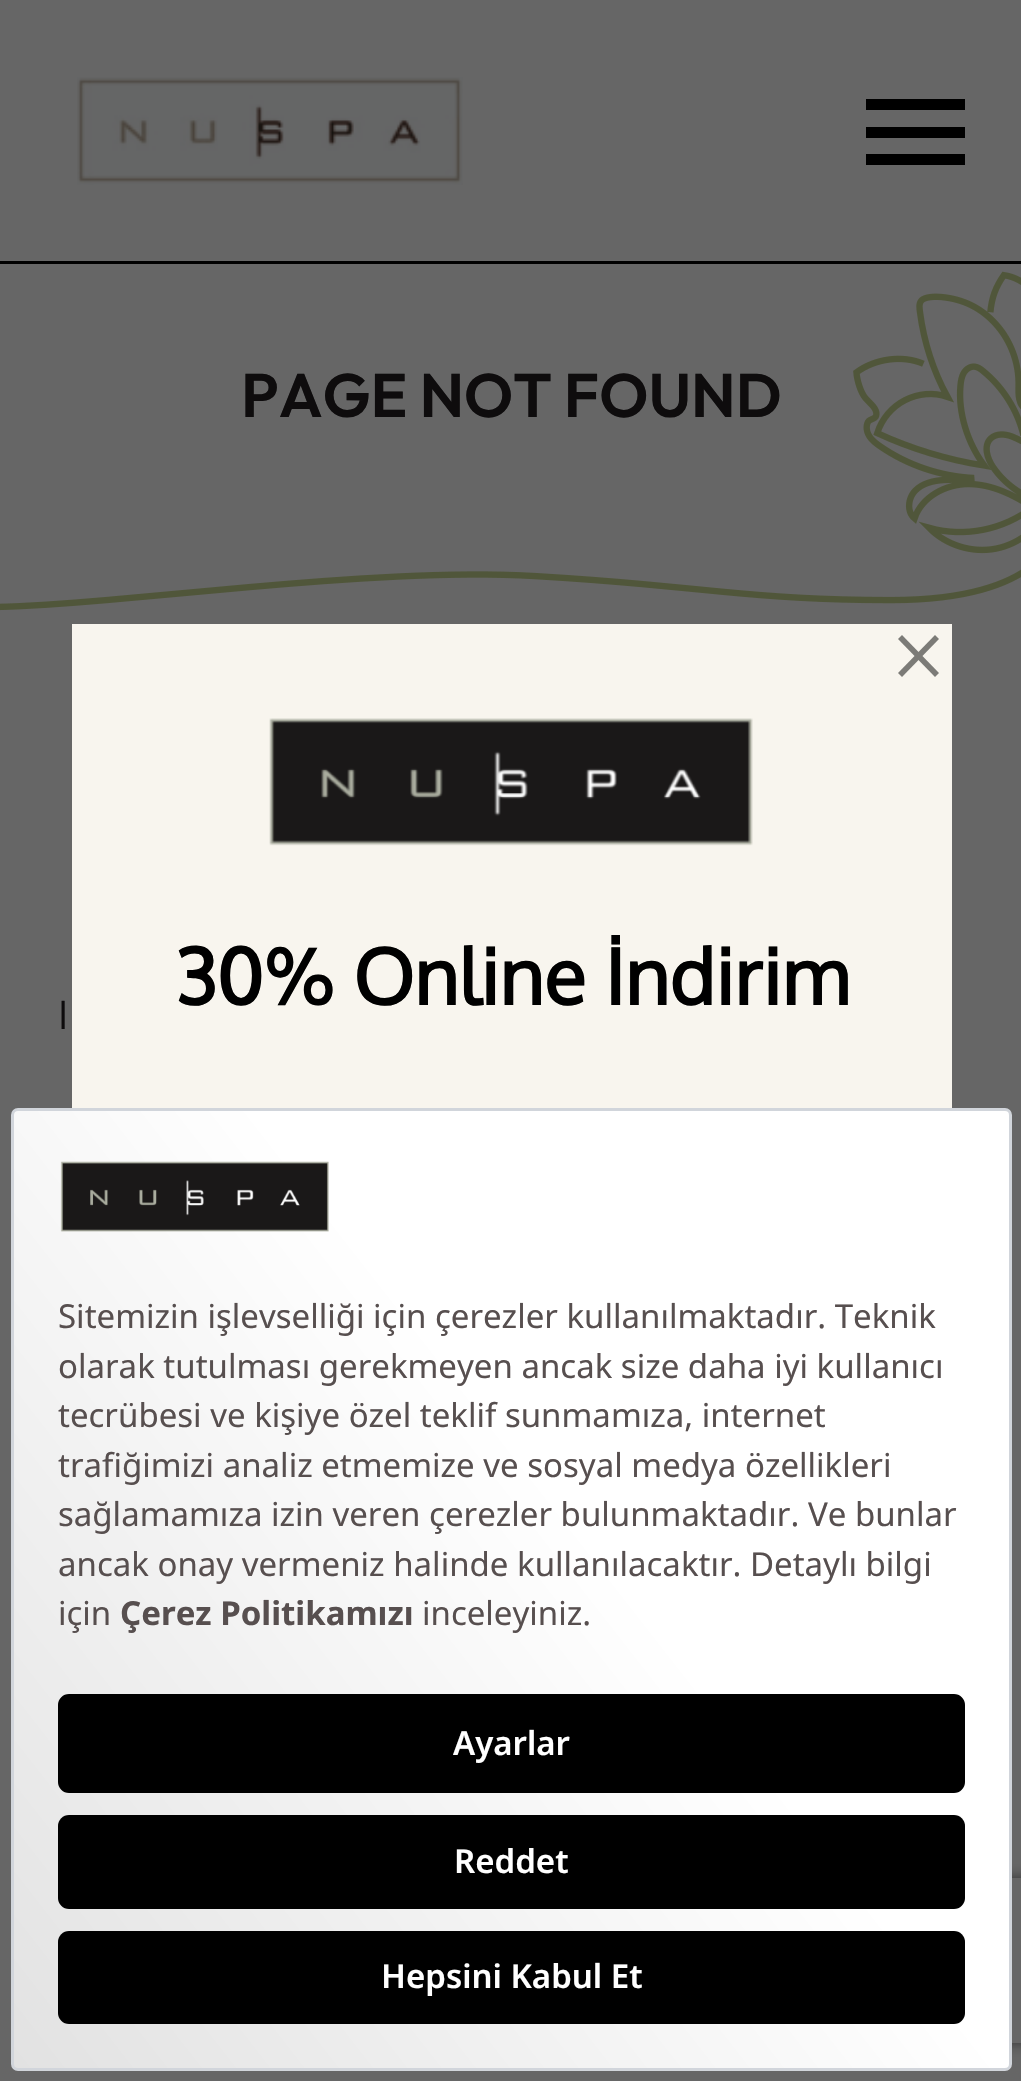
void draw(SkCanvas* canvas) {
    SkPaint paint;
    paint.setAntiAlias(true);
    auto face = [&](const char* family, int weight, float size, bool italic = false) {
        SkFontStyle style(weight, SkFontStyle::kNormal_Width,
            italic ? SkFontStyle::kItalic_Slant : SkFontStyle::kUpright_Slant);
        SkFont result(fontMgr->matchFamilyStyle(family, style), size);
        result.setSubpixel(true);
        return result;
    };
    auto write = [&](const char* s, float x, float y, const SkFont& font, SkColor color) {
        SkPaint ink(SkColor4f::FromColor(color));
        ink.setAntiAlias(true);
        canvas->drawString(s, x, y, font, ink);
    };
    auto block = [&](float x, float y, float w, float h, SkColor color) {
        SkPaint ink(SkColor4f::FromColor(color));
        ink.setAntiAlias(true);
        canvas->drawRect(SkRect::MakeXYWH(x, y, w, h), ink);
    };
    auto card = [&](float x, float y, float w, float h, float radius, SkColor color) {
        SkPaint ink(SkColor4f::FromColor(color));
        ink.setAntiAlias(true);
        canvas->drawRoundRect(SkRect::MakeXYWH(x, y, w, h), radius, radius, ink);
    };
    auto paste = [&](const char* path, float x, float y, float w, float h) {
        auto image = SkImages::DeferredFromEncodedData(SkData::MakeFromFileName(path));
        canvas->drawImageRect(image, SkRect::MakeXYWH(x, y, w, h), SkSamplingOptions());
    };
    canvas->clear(SkColorSetRGB(102, 102, 102));
    block(0, 261, 1021, 3, SK_ColorBLACK);
    paste("pic1.png", 77, 77, 386, 108);
    block(866, 99, 99, 11, SK_ColorBLACK);
    block(866, 127, 99, 11, SK_ColorBLACK);
    block(866, 154, 99, 11, SK_ColorBLACK);
    paste("pic2.png", 0, 271, 1021, 340);
    auto kFont1 = face("Outfit", 600, 61.4f);
    write("PAGE NOT FOUND", 241, 417, kFont1, SkColorSetRGB(14, 12, 13));
    auto kFont2 = face("Outfit", 300, 41);
    write("I", 58, 1029, kFont2, SkColorSetRGB(14, 12, 13));
    block(72, 624, 880, 484, SkColorSetRGB(248, 245, 238));
    paint.setColor(SkColorSetRGB(124, 123, 119));
    canvas->drawPath(SkPathBuilder().moveTo(902, 635).lineTo(939, 673).lineTo(935, 677).lineTo(898, 639).close().detach(), paint);
    canvas->drawPath(SkPathBuilder().moveTo(898, 673).lineTo(935, 635).lineTo(939, 639).lineTo(902, 677).close().detach(), paint);
    paste("pic3.png", 269, 718, 484, 128);
    auto kFont3 = face("Oxygen", 700, 77);
    write("30% Online İndirim", 175, 1005, kFont3, SK_ColorBLACK);
    canvas->save();
    canvas->clipPath(SkPathBuilder(SkPathFillType::kEvenOdd).moveTo(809, 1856).lineTo(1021, 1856).lineTo(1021, 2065).lineTo(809, 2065).close().moveTo(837, 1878).lineTo(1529, 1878).cubicTo(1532.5f, 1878, 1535, 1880.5f, 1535, 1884).lineTo(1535, 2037).cubicTo(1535, 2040.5f, 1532.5f, 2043, 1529, 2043).lineTo(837, 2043).cubicTo(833.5f, 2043, 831, 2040.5f, 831, 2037).lineTo(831, 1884).cubicTo(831, 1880.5f, 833.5f, 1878, 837, 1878).close().detach(), true);
    paint.setColor(SkColorSetRGB(51, 51, 51));
    paint.setMaskFilter(SkMaskFilter::MakeBlur(kNormal_SkBlurStyle, 7));
    canvas->drawRoundRect(SkRect::MakeXYWH(831, 1878, 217, 165), 6, 6, paint);
    paint.setMaskFilter(nullptr);
    canvas->restore();
    {
        const SkColor colors[] = {SkColorSetRGB(226, 226, 226), SK_ColorWHITE, SK_ColorWHITE};
        const float stops[] = {0, 0.57f, 1};
        const SkPoint ends[] = {{-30, 2012}, {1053, 1167}};
        paint.setShader(SkGradientShader::MakeLinear(ends, colors, stops, 3, SkTileMode::kClamp));
        paint.setAlpha(255);
    }
    canvas->drawRect(SkRect::MakeXYWH(14, 1111, 995, 957), paint);
    paint.setStyle(SkPaint::kStroke_Style);
    paint.setStrokeWidth(3);
    paint.setShader(nullptr);
    paint.setColor(SkColorSetRGB(209, 213, 219));
    canvas->drawRoundRect(SkRect::MakeXYWH(12.5f, 1109.5f, 998, 960), 5.5f, 5.5f, paint);
    paste("pic4.png", 60, 1161, 269, 71);
    auto kFont4 = face("Noto Sans", 400, 33);
    write("Sitemizin işlevselliği için çerezler kullanılmaktadır. Teknik", 58, 1328, kFont4, SkColorSetRGB(87, 79, 79));
    write("olarak tutulması gerekmeyen ancak size daha iyi kullanıcı", 58, 1378, kFont4, SkColorSetRGB(87, 79, 79));
    write("tecrübesi ve kişiye özel teklif sunmamıza, internet", 58, 1427, kFont4, SkColorSetRGB(87, 79, 79));
    write("trafiğimizi analiz etmemize ve sosyal medya özellikleri", 58, 1477, kFont4, SkColorSetRGB(87, 79, 79));
    write("sağlamamıza izin veren çerezler bulunmaktadır. Ve bunlar", 58, 1526, kFont4, SkColorSetRGB(87, 79, 79));
    write("ancak onay vermeniz halinde kullanılacaktır. Detaylı bilgi", 58, 1576, kFont4, SkColorSetRGB(87, 79, 79));
    write("için", 58, 1625, kFont4, SkColorSetRGB(87, 79, 79));
    auto kFont5 = face("Noto Sans", 700, 33);
    write("Çerez Politikamızı", 120, 1625, kFont5, SkColorSetRGB(87, 79, 79));
    write("inceleyiniz.", 422, 1625, kFont4, SkColorSetRGB(87, 79, 79));
    paint.setStyle(SkPaint::kFill_Style);
    paint.setColor(SK_ColorBLACK);
    canvas->drawRoundRect(SkRect::MakeXYWH(59.5f, 1695.5f, 904, 96), 9.5f, 9.5f, paint);
    paint.setStyle(SkPaint::kStroke_Style);
    canvas->drawRoundRect(SkRect::MakeXYWH(59.5f, 1695.5f, 904, 96), 9.5f, 9.5f, paint);
    auto kFont6 = face("Noto Sans", 600, 33);
    write("Ayarlar", 453, 1755, kFont6, SK_ColorWHITE);
    card(58, 1815, 907, 94, 11, SK_ColorBLACK);
    write("Reddet", 454, 1873, kFont6, SK_ColorWHITE);
    card(58, 1931, 907, 93, 11, SK_ColorBLACK);
    write("Hepsini Kabul Et", 381, 1988, kFont6, SK_ColorWHITE);
}
